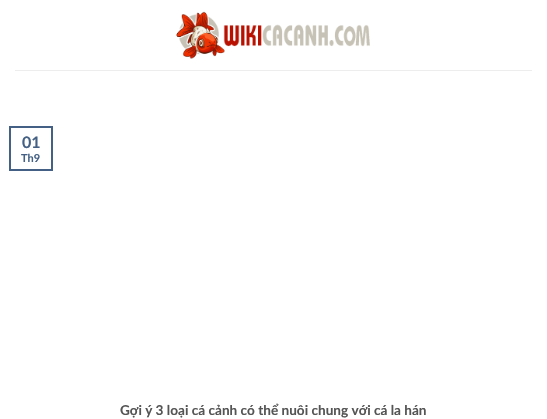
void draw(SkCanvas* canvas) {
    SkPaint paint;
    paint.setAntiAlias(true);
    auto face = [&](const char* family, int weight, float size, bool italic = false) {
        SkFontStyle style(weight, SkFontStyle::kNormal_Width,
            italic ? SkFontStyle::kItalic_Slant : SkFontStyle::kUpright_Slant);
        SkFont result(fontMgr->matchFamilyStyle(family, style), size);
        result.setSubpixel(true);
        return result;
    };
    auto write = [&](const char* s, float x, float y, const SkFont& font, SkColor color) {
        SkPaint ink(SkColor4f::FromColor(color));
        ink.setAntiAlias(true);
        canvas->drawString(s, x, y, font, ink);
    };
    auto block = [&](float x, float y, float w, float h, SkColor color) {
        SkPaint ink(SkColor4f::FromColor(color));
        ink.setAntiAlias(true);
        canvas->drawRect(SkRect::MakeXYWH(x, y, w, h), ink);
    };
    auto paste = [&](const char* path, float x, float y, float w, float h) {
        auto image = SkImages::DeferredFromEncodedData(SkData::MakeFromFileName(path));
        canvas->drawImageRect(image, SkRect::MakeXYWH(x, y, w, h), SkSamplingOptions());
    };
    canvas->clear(SK_ColorWHITE);
    paste("pic1.png", 176, 11, 194, 48);
    block(15, 70, 517, 1, SkColorSetRGB(237, 237, 237));
    paint.setStyle(SkPaint::kStroke_Style);
    paint.setStrokeWidth(2);
    paint.setColor(SkColorSetRGB(68, 96, 132));
    canvas->drawRect(SkRect::MakeXYWH(10, 127, 42, 43), paint);
    auto kFont1 = face("Lato", 700, 16);
    write("01", 22, 148, kFont1, SkColorSetRGB(68, 96, 132));
    auto kFont2 = face("Lato", 700, 11);
    write("Th9", 21, 162, kFont2, SkColorSetRGB(68, 96, 132));
    auto kFont3 = face("Lato", 700, 13.6f);
    write("Gợi ý 3 loại cá cảnh có thể nuôi chung với cá la hán", 120, 415, kFont3, SkColorSetRGB(85, 85, 85));
}
